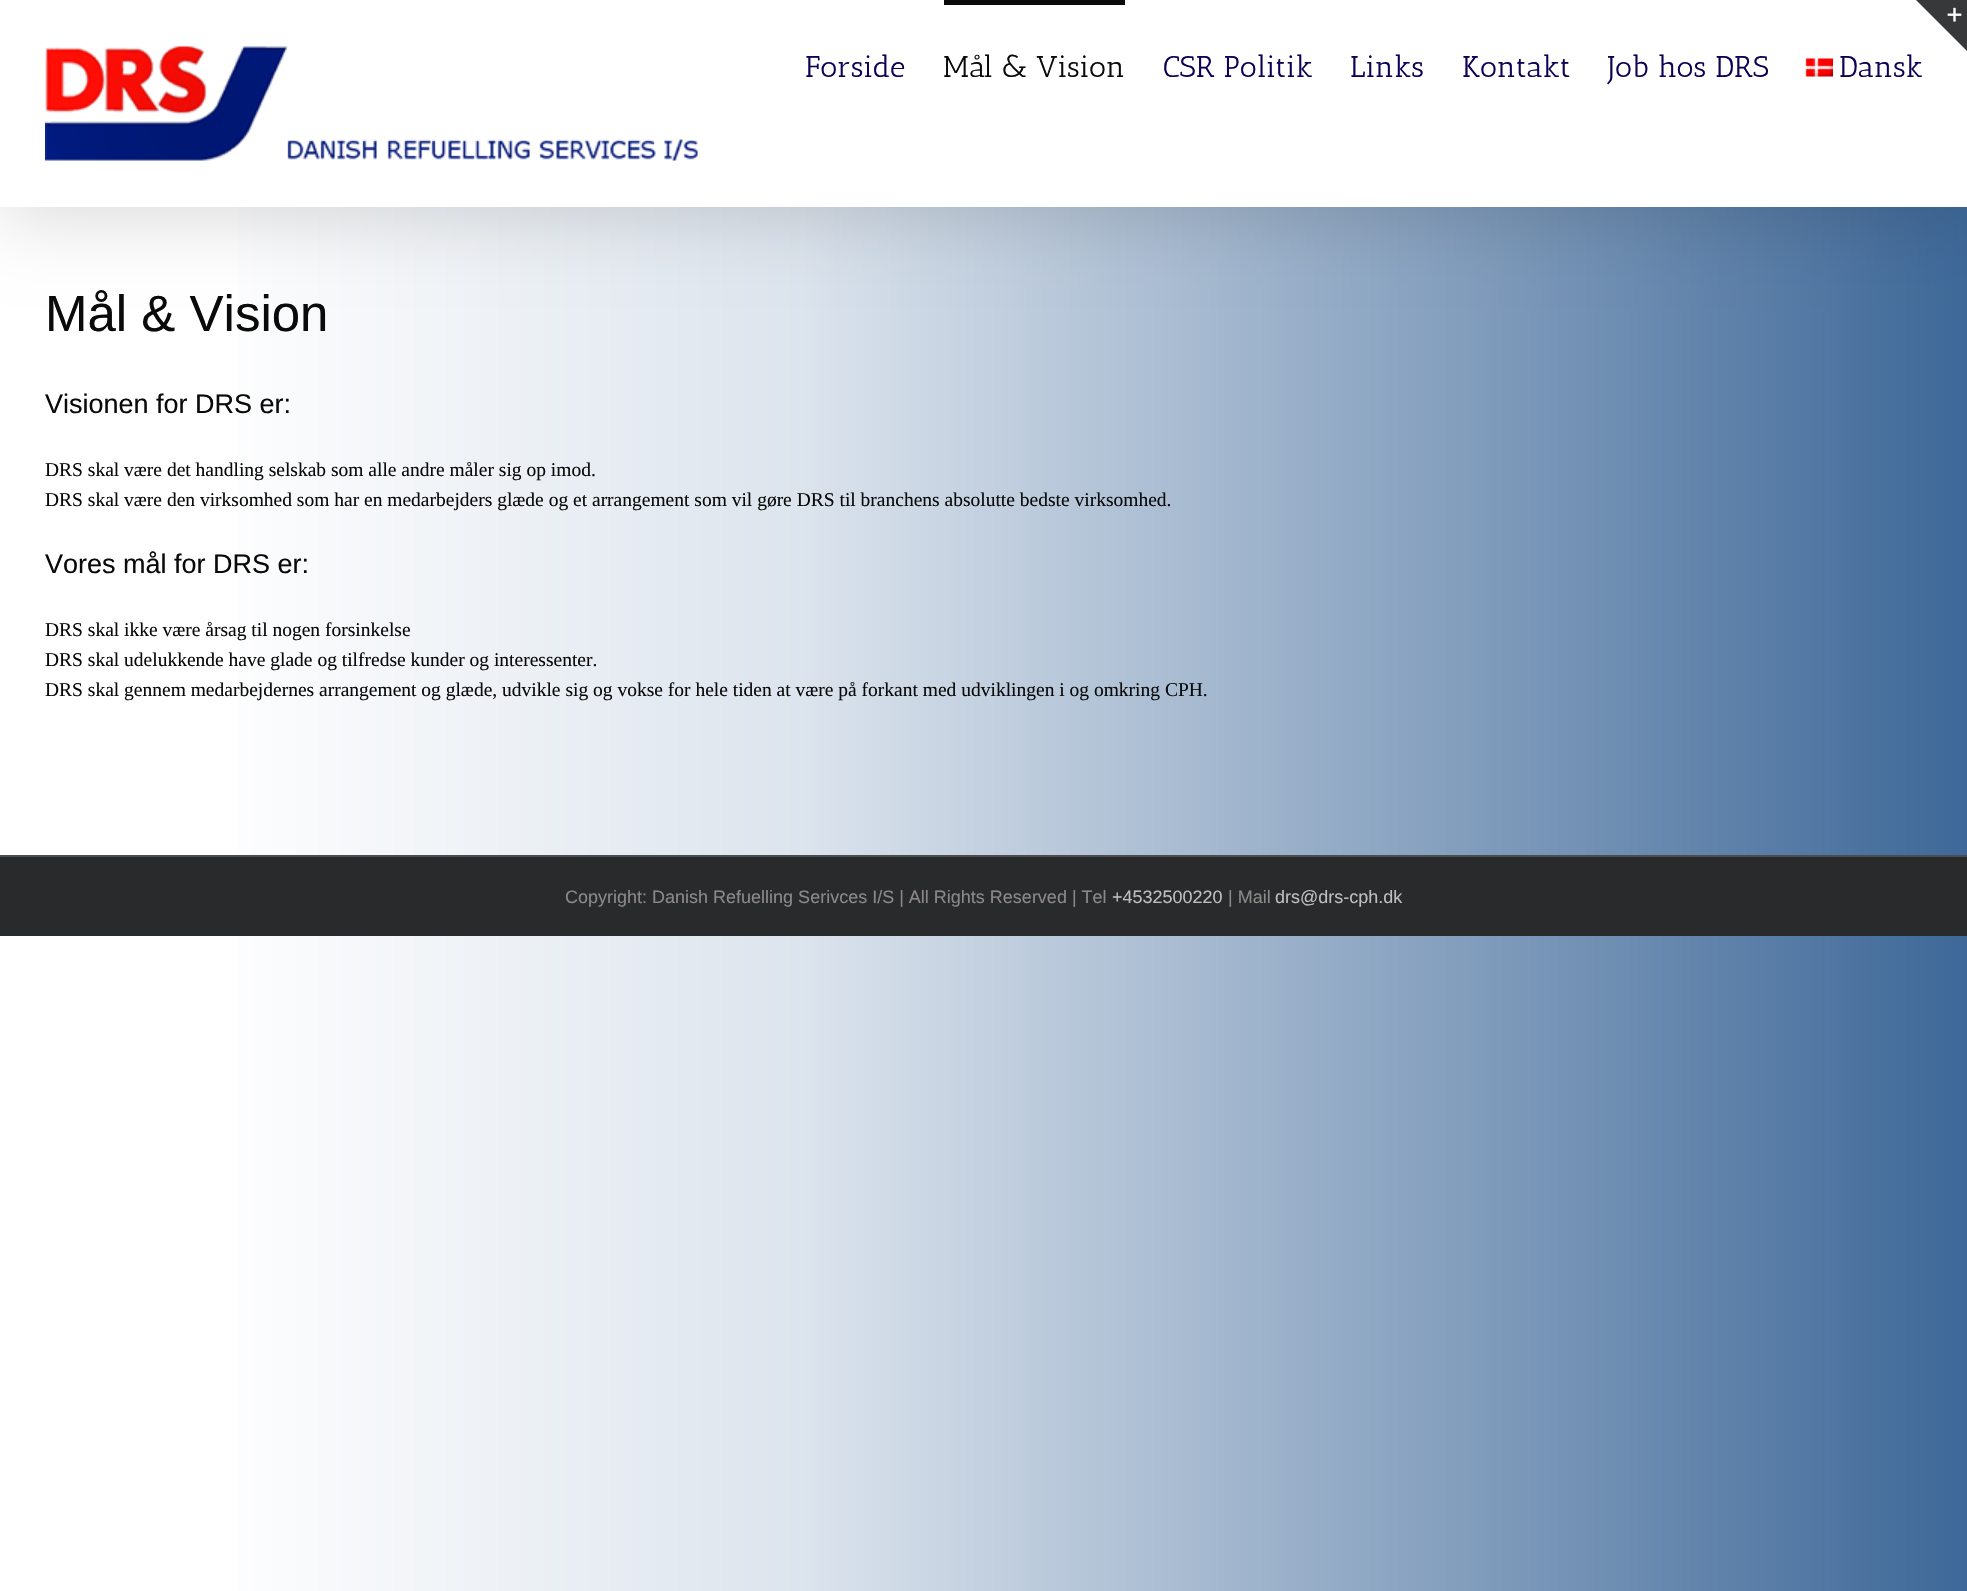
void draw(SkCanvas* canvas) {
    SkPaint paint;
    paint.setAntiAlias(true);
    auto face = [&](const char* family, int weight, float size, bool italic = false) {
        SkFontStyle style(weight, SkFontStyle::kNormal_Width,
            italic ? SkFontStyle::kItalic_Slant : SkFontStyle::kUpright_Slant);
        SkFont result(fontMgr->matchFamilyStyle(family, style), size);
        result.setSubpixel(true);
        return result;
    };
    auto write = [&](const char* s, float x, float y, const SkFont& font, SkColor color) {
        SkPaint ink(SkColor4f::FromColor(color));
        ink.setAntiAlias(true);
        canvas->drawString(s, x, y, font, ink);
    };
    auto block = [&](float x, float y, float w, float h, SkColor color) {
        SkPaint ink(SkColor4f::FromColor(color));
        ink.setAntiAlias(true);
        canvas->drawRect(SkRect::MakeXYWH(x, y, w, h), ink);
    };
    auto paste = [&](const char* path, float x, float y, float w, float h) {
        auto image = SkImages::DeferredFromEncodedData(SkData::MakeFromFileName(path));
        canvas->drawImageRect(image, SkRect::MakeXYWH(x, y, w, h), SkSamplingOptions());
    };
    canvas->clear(SK_ColorWHITE);
    {
        const SkColor colors[] = {SK_ColorWHITE, SkColorSetRGB(220, 228, 237), SkColorSetRGB(35, 83, 138)};
        const float stops[] = {0.09f, 0.37f, 1};
        const SkPoint ends[] = {{0, 468}, {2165, 468}};
        paint.setShader(SkGradientShader::MakeLinear(ends, colors, stops, 3, SkTileMode::kClamp));
        paint.setAlpha(255);
    }
    canvas->drawRect(SkRect::MakeXYWH(238, 207, 1729, 1384), paint);
    paint.setShader(nullptr);
    paint.setColor(SkColorSetARGB(36, 0, 0, 0));
    paint.setMaskFilter(SkMaskFilter::MakeBlur(kNormal_SkBlurStyle, 37.5f));
    canvas->drawRect(SkRect::MakeXYWH(3, 18, 1962, 201), paint);
    paint.setMaskFilter(nullptr);
    block(0, 0, 1967, 207, SK_ColorWHITE);
    paint.setColor(SkColorSetRGB(54, 56, 57));
    canvas->drawPath(SkPathBuilder().moveTo(1916, 0).lineTo(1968, 0).lineTo(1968, 52).close().detach(), paint);
    paste("pic1.png", 1947, 7, 15, 15);
    paste("pic2.png", 45, 46, 653, 115);
    auto kFont1 = face("Antic Slab", 400, 30);
    write("Forside", 805, 77, kFont1, SkColorSetRGB(14, 0, 84));
    block(944, 0, 181, 5, SkColorSetRGB(10, 10, 10));
    write("Mål & Vision", 943, 77, kFont1, SkColorSetRGB(10, 10, 10));
    write("CSR Politik", 1163, 77, kFont1, SkColorSetRGB(14, 0, 84));
    write("Links", 1350, 77, kFont1, SkColorSetRGB(14, 0, 84));
    write("Kontakt", 1462, 77, kFont1, SkColorSetRGB(14, 0, 84));
    write("Job hos DRS", 1608, 77, kFont1, SkColorSetRGB(14, 0, 84));
    paste("pic3.png", 1805, 58, 28, 19);
    write("Dansk", 1839, 77, kFont1, SkColorSetRGB(14, 0, 84));
    auto kFont2 = face("Liberation Sans", 400, 51);
    write("Mål & Vision", 45, 331, kFont2, SkColorSetRGB(10, 10, 10));
    auto kFont3 = face("Liberation Sans", 400, 27);
    write("Visionen for DRS er:", 45, 413, kFont3, SkColorSetRGB(10, 10, 10));
    auto kFont4 = face("Liberation Serif", 400, 19.5f);
    write("DRS skal være det handling selskab som alle andre måler sig op imod.", 45, 476, kFont4, SkColorSetRGB(10, 10, 10));
    write("DRS skal være den virksomhed som har en medarbejders glæde og et arrangement som vil gøre DRS til branchens absolutte bedste virksomhed.", 45, 506, kFont4, SkColorSetRGB(10, 10, 10));
    write("Vores mål for DRS er:", 45, 573, kFont3, SkColorSetRGB(10, 10, 10));
    write("DRS skal ikke være årsag til nogen forsinkelse", 45, 636, kFont4, SkColorSetRGB(10, 10, 10));
    write("DRS skal udelukkende have glade og tilfredse kunder og interessenter.", 45, 666, kFont4, SkColorSetRGB(10, 10, 10));
    write("DRS skal gennem medarbejdernes arrangement og glæde, udvikle sig og vokse for hele tiden at være på forkant med udviklingen i og omkring CPH.", 45, 696, kFont4, SkColorSetRGB(10, 10, 10));
    block(0, 857, 1967, 79, SkColorSetRGB(40, 42, 43));
    block(0, 855, 1967, 2, SkColorSetRGB(75, 76, 77));
    auto kFont5 = face("Liberation Sans", 400, 18);
    write("Copyright: Danish Refuelling Serivces I/S | All Rights Reserved | Tel", 565, 903, kFont5, SkColorSetRGB(140, 137, 137));
    write("+4532500220", 1112, 903, kFont5, SkColorSetRGB(191, 191, 191));
    write("| Mail", 1228, 903, kFont5, SkColorSetRGB(140, 137, 137));
    write("drs@drs-cph.dk", 1275, 903, kFont5, SkColorSetRGB(191, 191, 191));
}
